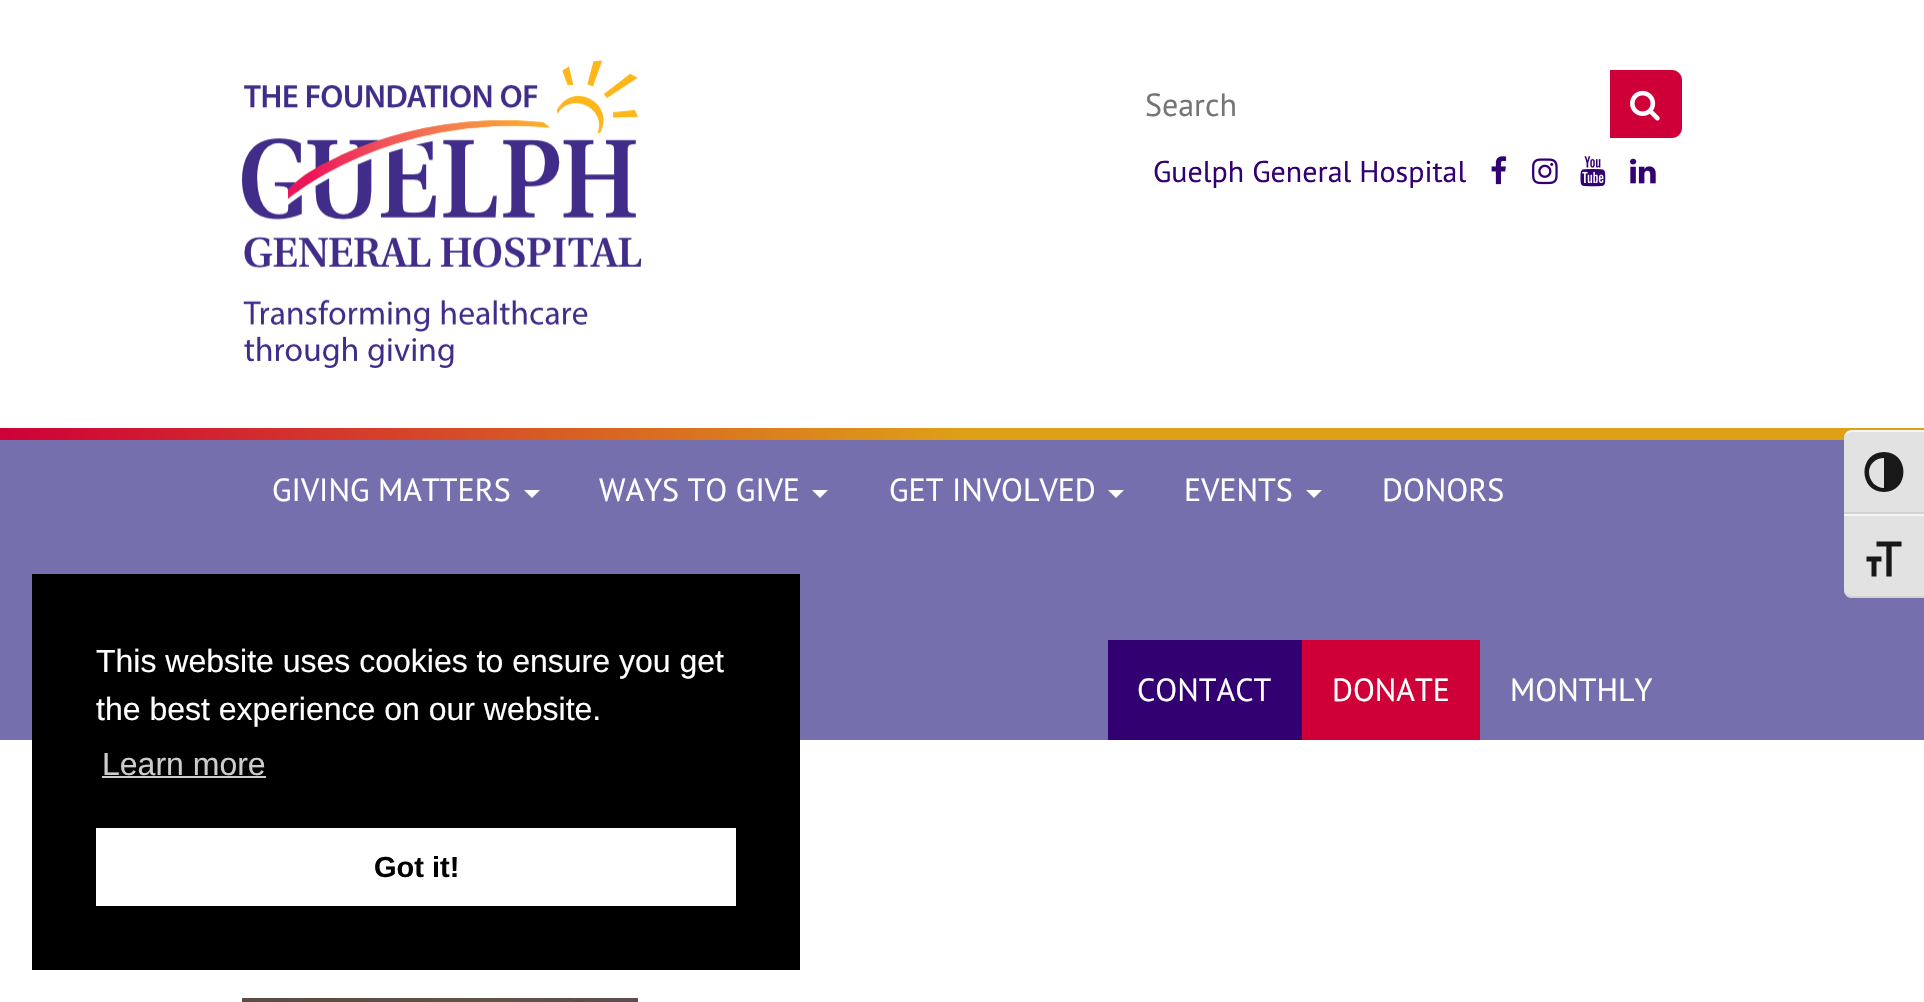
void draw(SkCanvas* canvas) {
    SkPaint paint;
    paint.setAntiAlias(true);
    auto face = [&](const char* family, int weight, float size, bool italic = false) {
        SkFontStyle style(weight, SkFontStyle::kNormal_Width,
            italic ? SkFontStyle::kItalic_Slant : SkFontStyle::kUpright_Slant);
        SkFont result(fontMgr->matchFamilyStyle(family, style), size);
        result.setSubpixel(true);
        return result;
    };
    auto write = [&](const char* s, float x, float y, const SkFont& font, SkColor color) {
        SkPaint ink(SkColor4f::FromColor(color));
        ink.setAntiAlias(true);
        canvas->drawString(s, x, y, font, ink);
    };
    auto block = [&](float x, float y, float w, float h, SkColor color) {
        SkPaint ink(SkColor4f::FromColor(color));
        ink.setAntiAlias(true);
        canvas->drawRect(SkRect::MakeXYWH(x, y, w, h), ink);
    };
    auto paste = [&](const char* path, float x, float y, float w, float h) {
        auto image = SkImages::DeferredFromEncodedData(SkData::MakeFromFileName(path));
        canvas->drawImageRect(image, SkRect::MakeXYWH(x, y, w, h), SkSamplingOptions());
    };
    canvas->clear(SK_ColorWHITE);
    paste("pic1.png", 0, 428, 1924, 12);
    paste("pic2.png", 242, 60, 400, 308);
    auto kFont1 = face("PT Sans", 400, 32);
    write("Search", 1145, 116, kFont1, SkColorSetRGB(117, 117, 117));
    paint.setColor(SkColorSetRGB(206, 0, 55));
    canvas->drawPath(SkPathBuilder().moveTo(1610, 70).lineTo(1672, 70).cubicTo(1677.5f, 70, 1682, 74.5f, 1682, 80).lineTo(1682, 128).cubicTo(1682, 133.5f, 1677.5f, 138, 1672, 138).lineTo(1610, 138).close().detach(), paint);
    paste("pic3.png", 1630, 90, 30, 31);
    auto kFont2 = face("PT Sans", 400, 30);
    write("Guelph General Hospital", 1153, 182, kFont2, SkColorSetRGB(51, 0, 114));
    paste("pic4.png", 1491, 156, 16, 29);
    paste("pic5.png", 1532, 158, 26, 27);
    paste("pic6.png", 1580, 156, 26, 31);
    paste("pic7.png", 1630, 158, 26, 26);
    block(0, 440, 1924, 300, SkColorSetRGB(117, 111, 174));
    write("GIVING MATTERS", 272, 501, kFont1, SK_ColorWHITE);
    paint.setColor(SK_ColorWHITE);
    canvas->drawPath(SkPathBuilder().moveTo(524, 490).lineTo(540, 490).lineTo(532, 498).close().detach(), paint);
    write("WAYS TO GIVE", 599, 501, kFont1, SK_ColorWHITE);
    canvas->drawPath(SkPathBuilder().moveTo(812, 490).lineTo(828, 490).lineTo(820, 498).close().detach(), paint);
    write("GET INVOLVED", 889, 501, kFont1, SK_ColorWHITE);
    canvas->drawPath(SkPathBuilder().moveTo(1108, 490).lineTo(1124, 490).lineTo(1116, 498).close().detach(), paint);
    write("EVENTS", 1184, 501, kFont1, SK_ColorWHITE);
    canvas->drawPath(SkPathBuilder().moveTo(1306, 490).lineTo(1322, 490).lineTo(1314, 498).close().detach(), paint);
    write("DONORS", 1382, 501, kFont1, SK_ColorWHITE);
    block(1108, 640, 194, 100, SkColorSetRGB(51, 0, 114));
    write("CONTACT", 1137, 701, kFont1, SK_ColorWHITE);
    block(1302, 640, 178, 100, SkColorSetRGB(206, 0, 55));
    write("DONATE", 1332, 701, kFont1, SK_ColorWHITE);
    write("MONTHLY", 1510, 701, kFont1, SK_ColorWHITE);
    paint.setColor(SkColorSetRGB(226, 226, 226));
    canvas->drawPath(SkPathBuilder().moveTo(1852, 430).lineTo(1924, 430).lineTo(1924, 514).lineTo(1844, 514).lineTo(1844, 438).cubicTo(1844, 433.5f, 1847.5f, 430, 1852, 430).close().detach(), paint);
    paint.setColor(SkColorSetRGB(245, 245, 245));
    canvas->drawPath(SkPathBuilder().moveTo(1852, 432).lineTo(1924, 432).lineTo(1924, 430).lineTo(1852, 430).cubicTo(1848, 430, 1844, 434, 1844, 438).cubicTo(1844, 435, 1848, 432, 1852, 432).close().detach(), paint);
    block(1844, 512, 80, 2, SkColorSetRGB(210, 210, 210));
    paint.setColor(SkColorSetRGB(24, 24, 24));
    canvas->drawPath(SkPathBuilder().moveTo(1884, 452).cubicTo(1858, 452, 1858, 492, 1884, 492).cubicTo(1910, 492, 1910, 452, 1884, 452).close().moveTo(1869, 472).cubicTo(1869, 464, 1876, 458, 1884, 458).lineTo(1884, 488).cubicTo(1876, 488, 1869, 481, 1869, 472).close().detach(), paint);
    paint.setColor(SkColorSetRGB(226, 226, 226));
    canvas->drawPath(SkPathBuilder().moveTo(1844, 514).lineTo(1924, 514).lineTo(1924, 598).lineTo(1852, 598).cubicTo(1847.5f, 598, 1844, 594.5f, 1844, 590).close().detach(), paint);
    block(1844, 514, 80, 2, SkColorSetRGB(245, 245, 245));
    paint.setColor(SkColorSetRGB(210, 210, 210));
    canvas->drawPath(SkPathBuilder().moveTo(1924, 598).lineTo(1924, 596).lineTo(1852, 596).cubicTo(1848, 596, 1844, 593, 1844, 590).cubicTo(1844, 594, 1848, 598, 1852, 598).close().detach(), paint);
    paste("pic8.png", 1866, 541, 36, 36);
    block(32, 574, 768, 396, SK_ColorBLACK);
    auto kFont3 = face("Liberation Sans", 400, 32);
    write("This website uses cookies to ensure you get", 96, 672, kFont3, SK_ColorWHITE);
    write("the best experience on our website.", 96, 720, kFont3, SK_ColorWHITE);
    write("Learn more", 102, 775, kFont3, SkColorSetRGB(204, 204, 204));
    block(102, 776, 164, 2, SkColorSetRGB(204, 204, 204));
    block(96, 828, 640, 78, SK_ColorWHITE);
    auto kFont4 = face("Liberation Sans", 700, 29);
    write("Got it!", 374, 877, kFont4, SK_ColorBLACK);
    paste("pic9.png", 242, 998, 396, 4);
}
